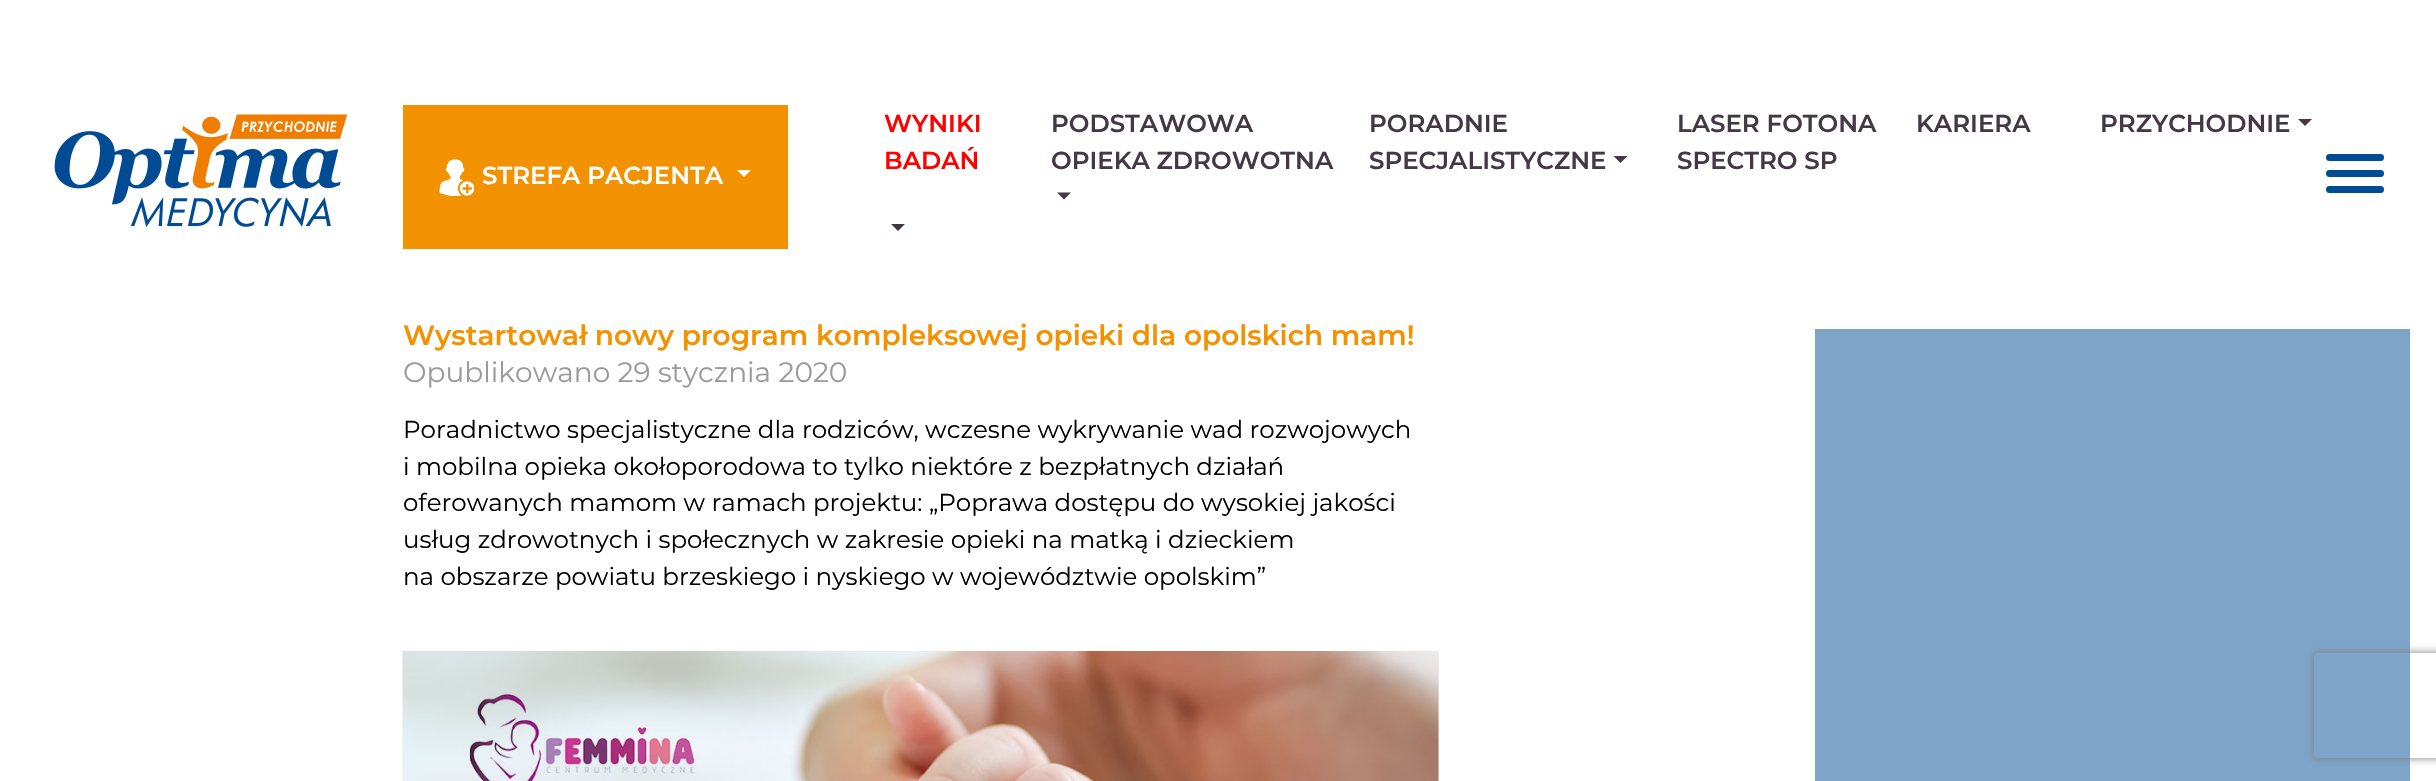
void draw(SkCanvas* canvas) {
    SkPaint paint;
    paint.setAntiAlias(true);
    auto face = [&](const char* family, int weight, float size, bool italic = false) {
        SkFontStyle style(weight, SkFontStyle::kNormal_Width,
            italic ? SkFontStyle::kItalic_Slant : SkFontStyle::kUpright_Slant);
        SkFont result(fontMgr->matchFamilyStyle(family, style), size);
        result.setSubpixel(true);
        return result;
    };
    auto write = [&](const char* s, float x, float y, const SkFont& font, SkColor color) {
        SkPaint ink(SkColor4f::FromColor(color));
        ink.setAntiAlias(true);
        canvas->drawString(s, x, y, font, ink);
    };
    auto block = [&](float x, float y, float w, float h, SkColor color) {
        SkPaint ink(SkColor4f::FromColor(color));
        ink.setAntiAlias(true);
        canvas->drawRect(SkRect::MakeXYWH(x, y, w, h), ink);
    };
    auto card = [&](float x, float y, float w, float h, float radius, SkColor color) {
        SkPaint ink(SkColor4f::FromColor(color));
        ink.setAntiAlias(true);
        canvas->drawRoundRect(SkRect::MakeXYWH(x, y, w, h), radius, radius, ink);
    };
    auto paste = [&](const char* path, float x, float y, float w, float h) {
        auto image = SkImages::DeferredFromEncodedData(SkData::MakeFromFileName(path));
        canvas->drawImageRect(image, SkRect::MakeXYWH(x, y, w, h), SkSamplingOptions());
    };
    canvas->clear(SK_ColorWHITE);
    paste("pic1.png", 54, 114, 294, 113);
    block(403, 105, 385, 144, SkColorSetRGB(243, 146, 0));
    paste("pic2.png", 439, 159, 35, 37);
    auto kFont1 = face("Montserrat", 600, 24.5f);
    write("STREFA PACJENTA", 482, 184, kFont1, SK_ColorWHITE);
    paint.setColor(SK_ColorWHITE);
    canvas->drawPath(SkPathBuilder().moveTo(737, 170).lineTo(751, 170).lineTo(744, 177).close().detach(), paint);
    write("WYNIKI", 884, 132, kFont1, SkColorSetRGB(255, 0, 0));
    write("BADAŃ", 884, 169, kFont1, SkColorSetRGB(255, 0, 0));
    paint.setColor(SkColorSetRGB(67, 56, 68));
    canvas->drawPath(SkPathBuilder().moveTo(891, 224).lineTo(905, 224).lineTo(898, 231).close().detach(), paint);
    write("PODSTAWOWA", 1051, 132, kFont1, SkColorSetRGB(67, 56, 68));
    write("OPIEKA ZDROWOTNA", 1051, 169, kFont1, SkColorSetRGB(67, 56, 68));
    canvas->drawPath(SkPathBuilder().moveTo(1057, 192.5f).lineTo(1071, 192.5f).lineTo(1064, 199.5f).close().detach(), paint);
    write("PORADNIE", 1369, 132, kFont1, SkColorSetRGB(67, 56, 68));
    write("SPECJALISTYCZNE", 1369, 169, kFont1, SkColorSetRGB(67, 56, 68));
    canvas->drawPath(SkPathBuilder().moveTo(1613.5f, 156).lineTo(1627.5f, 156).lineTo(1620.5f, 163).close().detach(), paint);
    write("LASER FOTONA", 1677, 132, kFont1, SkColorSetRGB(67, 56, 68));
    write("SPECTRO SP", 1677, 169, kFont1, SkColorSetRGB(67, 56, 68));
    write("KARIERA", 1916, 132, kFont1, SkColorSetRGB(67, 56, 68));
    write("PRZYCHODNIE", 2100, 132, kFont1, SkColorSetRGB(67, 56, 68));
    canvas->drawPath(SkPathBuilder().moveTo(2298, 119).lineTo(2312, 119).lineTo(2305, 126).close().detach(), paint);
    card(2326, 154, 58, 7, 3.5f, SkColorSetRGB(0, 75, 148));
    card(2326, 170, 58, 7, 3.5f, SkColorSetRGB(0, 75, 148));
    card(2326, 186, 58, 7, 3.5f, SkColorSetRGB(0, 75, 148));
    auto kFont2 = face("Montserrat", 600, 28);
    write("Wystartował nowy program kompleksowej opieki dla opolskich mam!", 403, 345, kFont2, SkColorSetRGB(243, 146, 0));
    auto kFont3 = face("Montserrat", 400, 28);
    write("Opublikowano 29 stycznia 2020", 403, 382, kFont3, SkColorSetRGB(154, 154, 154));
    auto kFont4 = face("Montserrat", 400, 24.5f);
    write("Poradnictwo specjalistyczne dla rodziców, wczesne wykrywanie wad rozwojowych", 403, 438, kFont4, SK_ColorBLACK);
    write("i mobilna opieka okołoporodowa to tylko niektóre z bezpłatnych działań", 403, 475, kFont4, SK_ColorBLACK);
    write("oferowanych mamom w ramach projektu: „Poprawa dostępu do wysokiej jakości", 403, 511, kFont4, SK_ColorBLACK);
    write("usług zdrowotnych i społecznych w zakresie opieki na matką i dzieckiem", 403, 548, kFont4, SK_ColorBLACK);
    write("na obszarze powiatu brzeskiego i nyskiego w województwie opolskim”", 403, 585, kFont4, SK_ColorBLACK);
    block(1438, 651, 1, 130, SkColorSetRGB(240, 240, 240));
    paste("pic3.png", 402, 651, 1037, 130);
    block(1815, 329, 595, 452, SkColorSetRGB(126, 164, 201));
    canvas->save();
    canvas->clipPath(SkPathBuilder(SkPathFillType::kEvenOdd).moveTo(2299, 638).lineTo(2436, 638).lineTo(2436, 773).lineTo(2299, 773).close().moveTo(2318, 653).lineTo(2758, 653).cubicTo(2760, 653, 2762, 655, 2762, 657).lineTo(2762, 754).cubicTo(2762, 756, 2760, 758, 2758, 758).lineTo(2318, 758).cubicTo(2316, 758, 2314, 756, 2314, 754).lineTo(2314, 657).cubicTo(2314, 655, 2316, 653, 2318, 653).close().detach(), true);
    paint.setColor(SkColorSetRGB(128, 128, 128));
    paint.setMaskFilter(SkMaskFilter::MakeBlur(kNormal_SkBlurStyle, 4.5f));
    canvas->drawRoundRect(SkRect::MakeXYWH(2314, 653, 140, 105), 4, 4, paint);
    paint.setMaskFilter(nullptr);
    canvas->restore();
}
